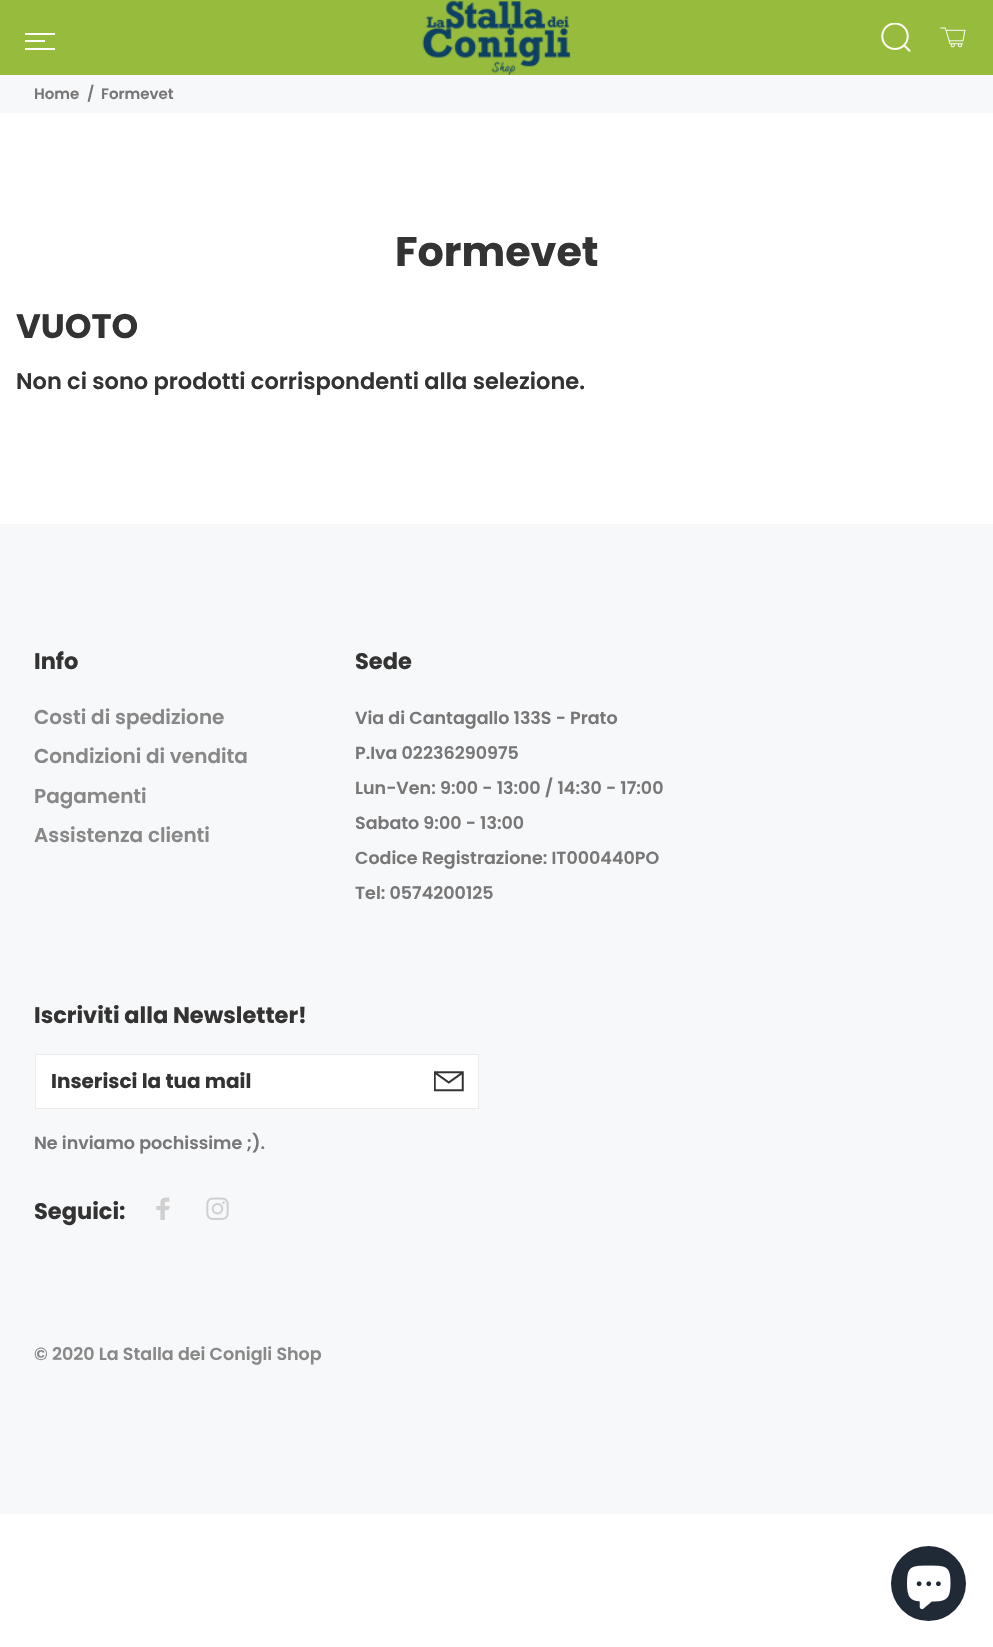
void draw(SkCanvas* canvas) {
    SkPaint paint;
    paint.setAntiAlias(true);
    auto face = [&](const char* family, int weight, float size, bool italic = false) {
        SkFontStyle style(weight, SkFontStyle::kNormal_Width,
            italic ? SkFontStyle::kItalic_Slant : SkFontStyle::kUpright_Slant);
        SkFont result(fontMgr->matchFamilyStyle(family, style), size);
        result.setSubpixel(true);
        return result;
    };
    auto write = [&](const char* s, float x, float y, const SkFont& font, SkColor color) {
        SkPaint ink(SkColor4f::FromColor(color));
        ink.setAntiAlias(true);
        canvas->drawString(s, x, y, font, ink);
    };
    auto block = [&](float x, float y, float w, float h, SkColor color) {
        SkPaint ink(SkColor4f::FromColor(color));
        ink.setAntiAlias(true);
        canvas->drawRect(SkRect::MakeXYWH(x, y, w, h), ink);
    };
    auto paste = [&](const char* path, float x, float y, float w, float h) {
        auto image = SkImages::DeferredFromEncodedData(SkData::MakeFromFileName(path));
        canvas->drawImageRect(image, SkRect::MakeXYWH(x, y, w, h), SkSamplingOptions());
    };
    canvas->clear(SK_ColorWHITE);
    block(0, 0, 993, 75, SkColorSetRGB(151, 188, 61));
    block(25, 33, 30, 2, SK_ColorWHITE);
    block(25, 40, 20, 2, SK_ColorWHITE);
    block(25, 48, 30, 2, SK_ColorWHITE);
    paste("pic1.png", 422, 0, 149, 75);
    paste("pic2.png", 881, 23, 30, 29);
    paste("pic3.png", 940, 27, 26, 21);
    block(0, 75, 993, 38, SkColorSetRGB(247, 248, 250));
    auto kFont1 = face("Poppins", 600, 15);
    write("Home", 34, 99, kFont1, SkColorSetRGB(119, 119, 119));
    write("/", 87, 99, kFont1, SkColorSetRGB(119, 119, 119));
    write("Formevet", 101, 99, kFont1, SkColorSetRGB(119, 119, 119));
    auto kFont2 = face("poppins", 700, 41.25f);
    write("Formevet", 395, 266, kFont2, SkColorSetRGB(51, 51, 51));
    auto kFont3 = face("poppins", 700, 34);
    write("VUOTO", 16, 338, kFont3, SkColorSetRGB(51, 51, 51));
    auto kFont4 = face("Poppins", 600, 22.5f);
    write("Non ci sono prodotti corrispondenti alla selezione.", 16, 389, kFont4, SkColorSetRGB(51, 51, 51));
    block(0, 524, 993, 990, SkColorSetRGB(247, 248, 250));
    auto kFont5 = face("poppins", 700, 22.5f);
    write("Info", 34, 669, kFont5, SkColorSetRGB(51, 51, 51));
    auto kFont6 = face("Poppins", 600, 20);
    write("Costi di spedizione", 34, 724, kFont6, SkColorSetRGB(136, 136, 136));
    write("Condizioni di vendita", 34, 763, kFont6, SkColorSetRGB(136, 136, 136));
    write("Pagamenti", 34, 803, kFont6, SkColorSetRGB(136, 136, 136));
    write("Assistenza clienti", 34, 842, kFont6, SkColorSetRGB(136, 136, 136));
    write("Sede", 355, 669, kFont5, SkColorSetRGB(51, 51, 51));
    auto kFont7 = face("Poppins", 600, 17.5f);
    write("Via di Cantagallo 133S - Prato", 355, 724, kFont7, SkColorSetRGB(119, 119, 119));
    write("P.Iva 02236290975", 355, 759, kFont7, SkColorSetRGB(119, 119, 119));
    write("Lun-Ven: 9:00 - 13:00 / 14:30 - 17:00", 355, 794, kFont7, SkColorSetRGB(119, 119, 119));
    write("Sabato 9:00 - 13:00", 355, 829, kFont7, SkColorSetRGB(119, 119, 119));
    write("Codice Registrazione: IT000440PO", 355, 864, kFont7, SkColorSetRGB(119, 119, 119));
    write("Tel: 0574200125", 355, 899, kFont7, SkColorSetRGB(119, 119, 119));
    write("Iscriviti alla Newsletter!", 34, 1023, kFont5, SkColorSetRGB(51, 51, 51));
    paint.setColor(SK_ColorWHITE);
    canvas->drawRect(SkRect::MakeXYWH(35.5f, 1054.5f, 443, 54), paint);
    paint.setStyle(SkPaint::kStroke_Style);
    paint.setStrokeWidth(1);
    paint.setColor(SkColorSetRGB(235, 235, 235));
    canvas->drawRect(SkRect::MakeXYWH(35.5f, 1054.5f, 443, 54), paint);
    auto kFont8 = face("poppins", 700, 20);
    write("Inserisci la tua mail", 51, 1088, kFont8, SkColorSetRGB(51, 51, 51));
    paste("pic4.png", 434, 1071, 30, 21);
    write("Ne inviamo pochissime ;).", 34, 1149, kFont7, SkColorSetRGB(119, 119, 119));
    write("Seguici:", 34, 1219, kFont5, SkColorSetRGB(51, 51, 51));
    paste("pic5.png", 156, 1197, 14, 23);
    paste("pic6.png", 206, 1197, 23, 23);
    write("© 2020 La Stalla dei Conigli Shop", 34, 1360, kFont7, SkColorSetRGB(136, 136, 136));
    paint.setStyle(SkPaint::kFill_Style);
    paint.setColor(SkColorSetRGB(32, 42, 54));
    canvas->drawCircle(928.5f, 1583.5f, 37.5f, paint);
    paste("pic7.png", 907, 1565, 44, 45);
}
